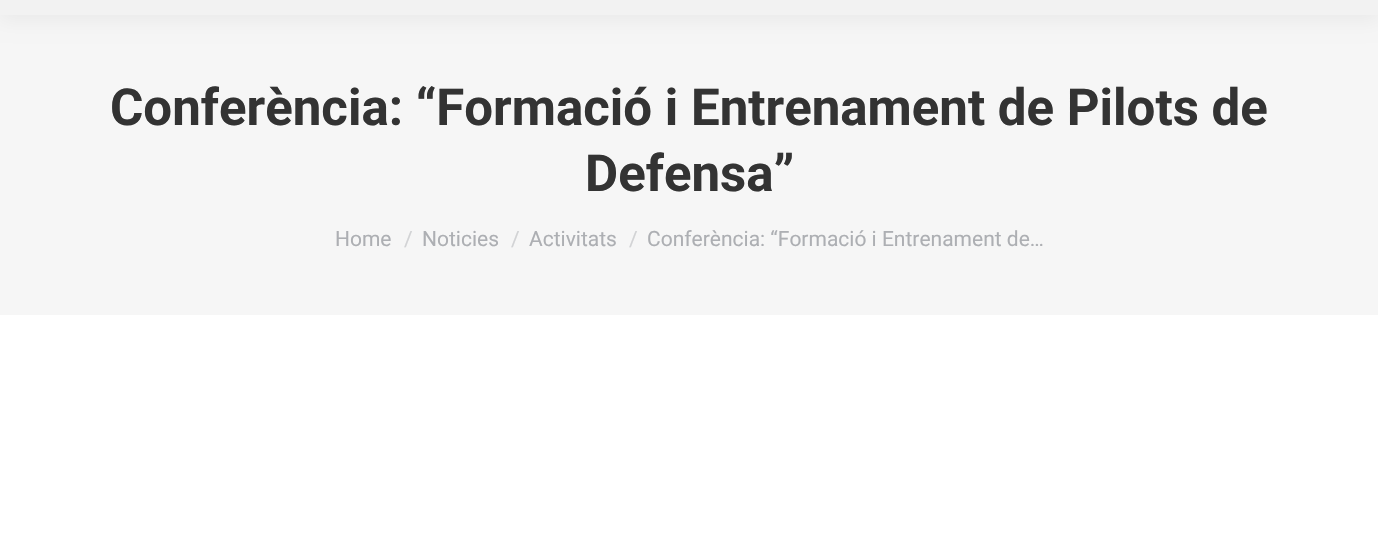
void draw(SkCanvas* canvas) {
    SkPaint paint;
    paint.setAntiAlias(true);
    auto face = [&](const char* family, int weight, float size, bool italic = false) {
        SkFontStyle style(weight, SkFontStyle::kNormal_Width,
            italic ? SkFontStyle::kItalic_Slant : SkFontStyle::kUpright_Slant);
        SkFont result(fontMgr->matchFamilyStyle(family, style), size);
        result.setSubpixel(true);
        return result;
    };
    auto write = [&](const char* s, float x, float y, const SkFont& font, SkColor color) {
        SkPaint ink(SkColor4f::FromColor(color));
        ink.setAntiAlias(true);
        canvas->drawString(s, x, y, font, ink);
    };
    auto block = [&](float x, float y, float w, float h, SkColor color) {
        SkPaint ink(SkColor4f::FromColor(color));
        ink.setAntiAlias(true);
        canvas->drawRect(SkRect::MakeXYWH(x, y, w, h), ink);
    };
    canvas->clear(SK_ColorWHITE);
    block(0, 15, 1378, 300, SkColorSetRGB(246, 246, 246));
    paint.setColor(SkColorSetARGB(18, 0, 0, 0));
    paint.setMaskFilter(SkMaskFilter::MakeBlur(kNormal_SkBlurStyle, 11));
    canvas->drawRect(SkRect::MakeXYWH(-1, -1, 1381, 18), paint);
    paint.setMaskFilter(nullptr);
    block(0, 0, 1378, 15, SkColorSetRGB(242, 242, 242));
    auto kFont1 = face("Roboto", 700, 51);
    write("Conferència: “Formació i Entrenament de Pilots de", 110, 125, kFont1, SkColorSetRGB(51, 51, 51));
    write("Defensa”", 585, 191, kFont1, SkColorSetRGB(51, 51, 51));
    auto kFont2 = face("Roboto", 400, 21);
    write("Home", 335, 246, kFont2, SkColorSetRGB(173, 175, 179));
    write("/", 404, 246, kFont2, SkColorSetRGB(210, 211, 213));
    write("Noticies", 422, 246, kFont2, SkColorSetRGB(173, 175, 179));
    write("/", 511, 246, kFont2, SkColorSetRGB(210, 211, 213));
    write("Activitats", 529, 246, kFont2, SkColorSetRGB(173, 175, 179));
    write("/", 629, 246, kFont2, SkColorSetRGB(210, 211, 213));
    write("Conferència: “Formació i Entrenament de…", 647, 246, kFont2, SkColorSetRGB(173, 175, 179));
}
